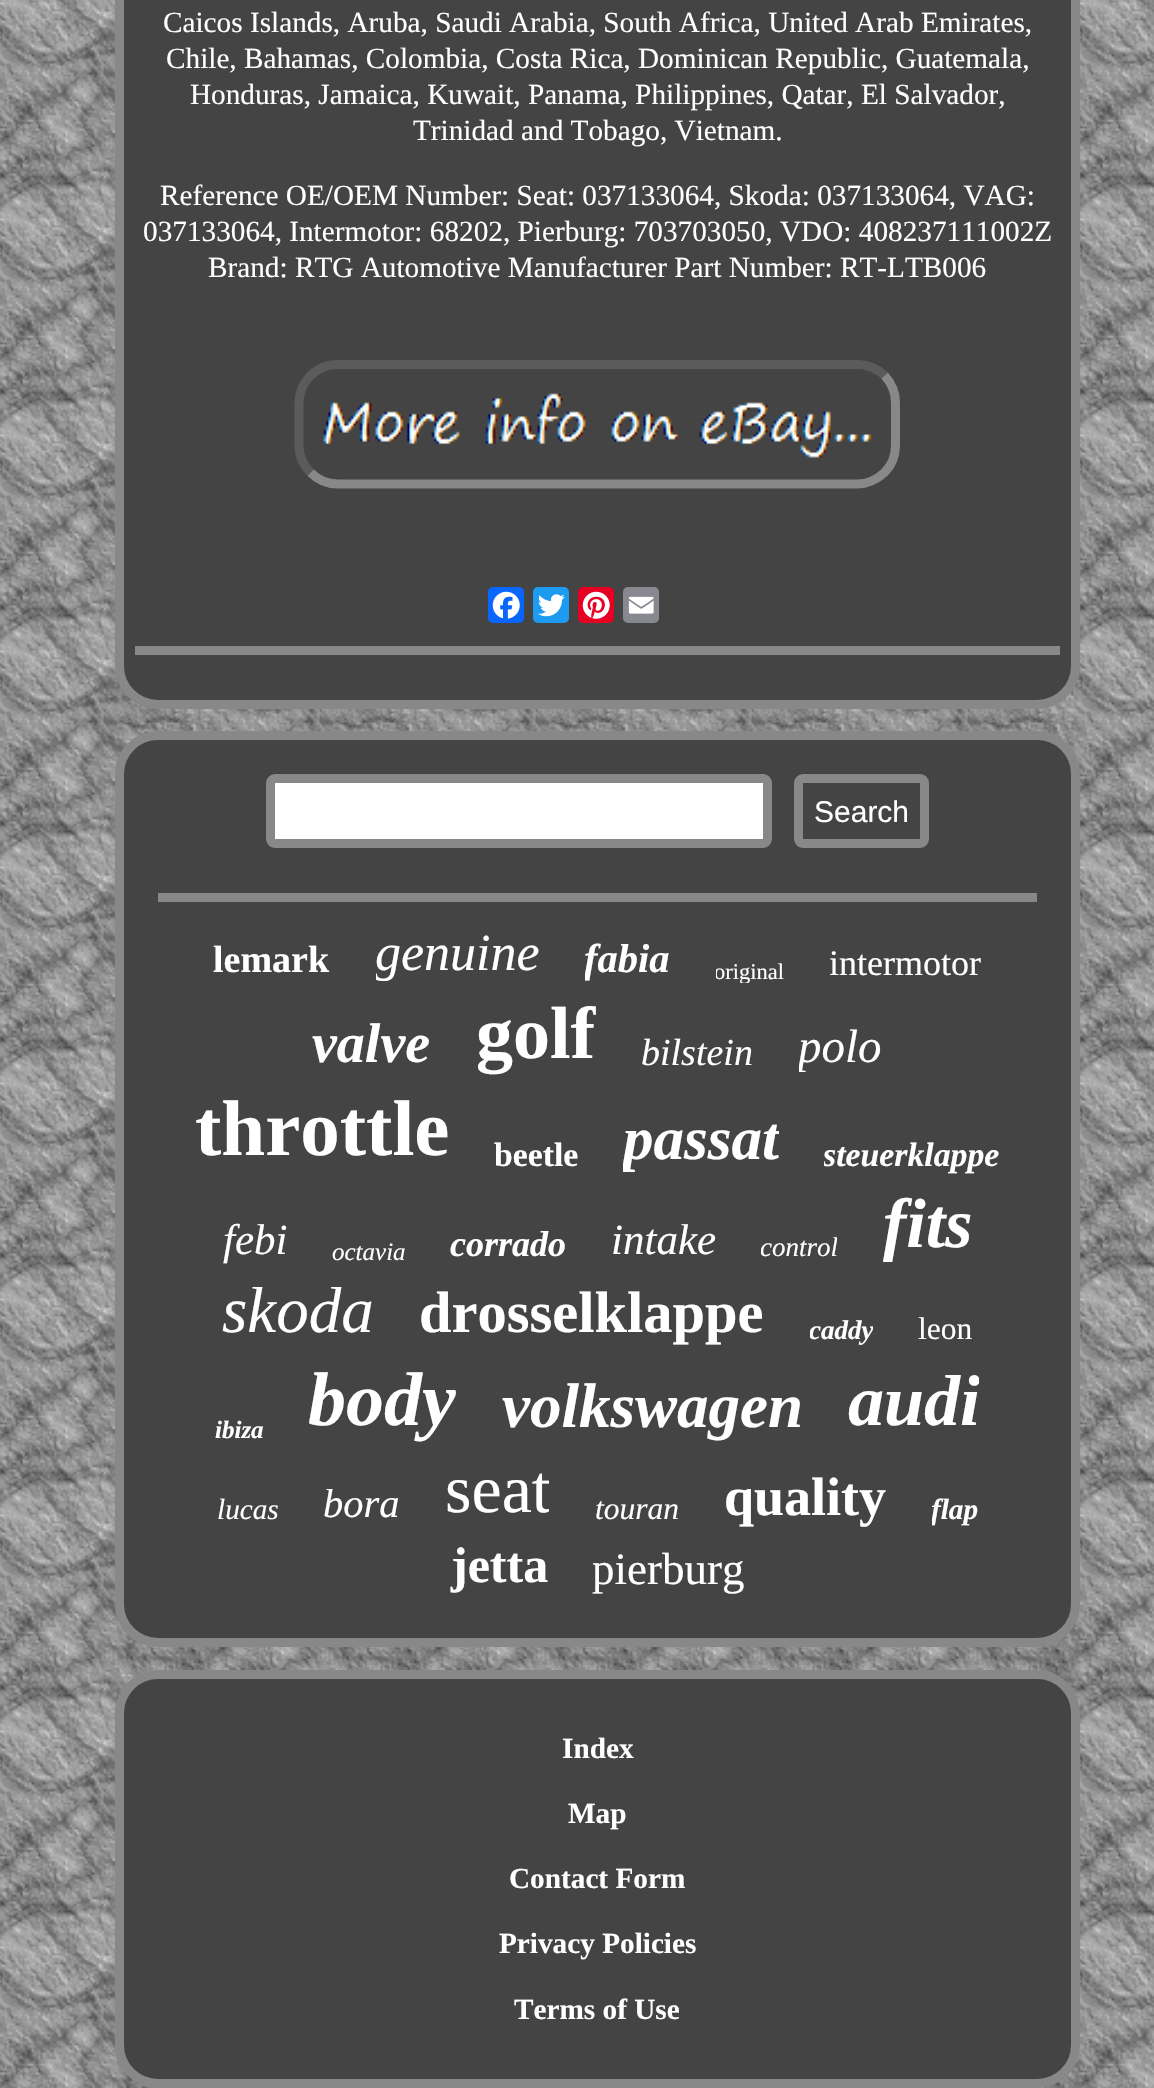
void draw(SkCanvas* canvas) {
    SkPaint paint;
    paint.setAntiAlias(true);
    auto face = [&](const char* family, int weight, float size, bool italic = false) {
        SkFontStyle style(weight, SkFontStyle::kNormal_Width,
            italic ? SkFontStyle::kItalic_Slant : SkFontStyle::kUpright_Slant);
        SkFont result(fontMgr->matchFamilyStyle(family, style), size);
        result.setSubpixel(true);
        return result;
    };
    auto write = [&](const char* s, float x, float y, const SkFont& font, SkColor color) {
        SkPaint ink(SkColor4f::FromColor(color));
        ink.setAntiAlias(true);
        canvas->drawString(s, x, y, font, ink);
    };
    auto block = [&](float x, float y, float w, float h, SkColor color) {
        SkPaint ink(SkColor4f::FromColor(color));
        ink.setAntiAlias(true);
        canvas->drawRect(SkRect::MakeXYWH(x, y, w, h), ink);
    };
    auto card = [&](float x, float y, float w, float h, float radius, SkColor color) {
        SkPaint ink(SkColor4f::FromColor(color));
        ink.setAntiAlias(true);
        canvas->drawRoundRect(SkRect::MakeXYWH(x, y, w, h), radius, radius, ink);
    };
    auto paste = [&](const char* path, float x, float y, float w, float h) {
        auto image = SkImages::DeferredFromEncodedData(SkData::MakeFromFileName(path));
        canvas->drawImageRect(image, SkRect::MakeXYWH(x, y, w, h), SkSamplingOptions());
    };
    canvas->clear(SK_ColorWHITE);
    paste("pic1.png", 0, 0, 1154, 2088);
    paint.setColor(SkColorSetRGB(68, 68, 68));
    canvas->drawRoundRect(SkRect::MakeXYWH(119.5f, -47.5f, 956, 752), 38.5f, 38.5f, paint);
    paint.setStyle(SkPaint::kStroke_Style);
    paint.setStrokeWidth(9);
    paint.setColor(SkColorSetRGB(136, 136, 136));
    canvas->drawRoundRect(SkRect::MakeXYWH(119.5f, -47.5f, 956, 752), 38.5f, 38.5f, paint);
    auto kFont1 = face("Liberation Serif", 400, 29.25f);
    write("Caicos Islands, Aruba, Saudi Arabia, South Africa, United Arab Emirates,", 163, 32, kFont1, SK_ColorWHITE);
    write("Chile, Bahamas, Colombia, Costa Rica, Dominican Republic, Guatemala,", 166, 68, kFont1, SK_ColorWHITE);
    write("Honduras, Jamaica, Kuwait, Panama, Philippines, Qatar, El Salvador,", 190, 104, kFont1, SK_ColorWHITE);
    write("Trinidad and Tobago, Vietnam.", 413, 140, kFont1, SK_ColorWHITE);
    write("Reference OE/OEM Number: Seat: 037133064, Skoda: 037133064, VAG:", 160, 205, kFont1, SK_ColorWHITE);
    write("037133064, Intermotor: 68202, Pierburg: 703703050, VDO: 408237111002Z", 143, 241, kFont1, SK_ColorWHITE);
    write("Brand: RTG Automotive Manufacturer Part Number: RT-LTB006", 208, 277, kFont1, SK_ColorWHITE);
    canvas->drawPath(SkPathBuilder().moveTo(884.5f, 375.5f).cubicTo(891.5f, 383, 895.5f, 392.5f, 895.5f, 403).lineTo(895.5f, 445.5f).cubicTo(895.5f, 455.5f, 891.5f, 465.5f, 884.5f, 472.5f).cubicTo(877, 479.5f, 867.5f, 484, 857, 484).lineTo(337.5f, 484).cubicTo(327.5f, 484, 317.5f, 479.5f, 310.5f, 472.5f).detach(), paint);
    paint.setColor(SkColorSetRGB(91, 91, 91));
    canvas->drawPath(SkPathBuilder().moveTo(310.5f, 472.5f).cubicTo(303.5f, 465.5f, 299, 455.5f, 299, 445.5f).lineTo(299, 403).cubicTo(299, 392.5f, 303.5f, 383, 310.5f, 375.5f).cubicTo(317.5f, 368.5f, 327.5f, 364.5f, 337.5f, 364.5f).lineTo(857, 364.5f).cubicTo(867.5f, 364.5f, 877, 368.5f, 884.5f, 375.5f).detach(), paint);
    paste("pic2.png", 323, 393, 549, 65);
    card(488, 587, 36, 36, 5, SkColorSetRGB(8, 102, 255));
    paste("pic3.png", 492, 591, 28, 28);
    card(533, 587, 36, 36, 5, SkColorSetRGB(29, 155, 240));
    paste("pic4.png", 538, 594, 27, 23);
    card(578, 587, 36, 36, 5, SkColorSetRGB(230, 0, 35));
    paste("pic5.png", 582, 591, 28, 28);
    card(623, 587, 36, 36, 5, SkColorSetRGB(136, 137, 144));
    paste("pic6.png", 628, 596, 26, 18);
    block(135, 646, 925, 9, SkColorSetRGB(136, 136, 136));
    paint.setStyle(SkPaint::kFill_Style);
    paint.setColor(SkColorSetRGB(68, 68, 68));
    canvas->drawRoundRect(SkRect::MakeXYWH(119.5f, 735.5f, 956, 907), 38.5f, 38.5f, paint);
    paint.setStyle(SkPaint::kStroke_Style);
    paint.setColor(SkColorSetRGB(136, 136, 136));
    canvas->drawRoundRect(SkRect::MakeXYWH(119.5f, 735.5f, 956, 907), 38.5f, 38.5f, paint);
    paint.setStyle(SkPaint::kFill_Style);
    paint.setColor(SK_ColorWHITE);
    canvas->drawRoundRect(SkRect::MakeXYWH(270.5f, 778.5f, 497, 65), 4.5f, 4.5f, paint);
    paint.setStyle(SkPaint::kStroke_Style);
    paint.setColor(SkColorSetRGB(136, 136, 136));
    canvas->drawRoundRect(SkRect::MakeXYWH(270.5f, 778.5f, 497, 65), 4.5f, 4.5f, paint);
    canvas->drawRoundRect(SkRect::MakeXYWH(798.5f, 778.5f, 126, 65), 4.5f, 4.5f, paint);
    auto kFont2 = face("Liberation Sans", 400, 30);
    write("Search", 814, 822, kFont2, SK_ColorWHITE);
    block(158, 893, 879, 9, SkColorSetRGB(136, 136, 136));
    auto kFont3 = face("Liberation Serif", 700, 38);
    write("lemark", 213, 972, kFont3, SK_ColorWHITE);
    canvas->save();
    canvas->clipRect(SkRect::MakeXYWH(376, 925, 164, 58));
    auto kFont4 = face("Liberation Serif", 400, 52, true);
    write("genuine", 375, 970, kFont4, SK_ColorWHITE);
    canvas->restore();
    canvas->save();
    canvas->clipRect(SkRect::MakeXYWH(585, 936, 86, 47));
    auto kFont5 = face("Liberation Serif", 700, 40.5f, true);
    write("fabia", 584, 972, kFont5, SK_ColorWHITE);
    canvas->restore();
    canvas->save();
    canvas->clipRect(SkRect::MakeXYWH(716, 959, 69, 24));
    auto kFont6 = face("Liberation Serif", 400, 22.5f);
    write("original", 714, 979, kFont6, SK_ColorWHITE);
    canvas->restore();
    canvas->save();
    canvas->clipRect(SkRect::MakeXYWH(830, 943, 151, 40));
    auto kFont7 = face("Liberation Serif", 400, 36);
    write("intermotor", 829, 975, kFont7, SK_ColorWHITE);
    canvas->restore();
    auto kFont8 = face("Liberation Serif", 700, 56, true);
    write("valve", 312, 1062, kFont8, SK_ColorWHITE);
    canvas->save();
    canvas->clipRect(SkRect::MakeXYWH(477, 992, 119, 84));
    auto kFont9 = face("Liberation Serif", 700, 74);
    write("golf", 476, 1058, kFont9, SK_ColorWHITE);
    canvas->restore();
    auto kFont10 = face("Liberation Serif", 400, 38, true);
    write("bilstein", 641, 1065, kFont10, SK_ColorWHITE);
    canvas->save();
    canvas->clipRect(SkRect::MakeXYWH(799, 1019, 83, 57));
    auto kFont11 = face("Liberation Serif", 400, 47, true);
    write("polo", 798, 1062, kFont11, SK_ColorWHITE);
    canvas->restore();
    auto kFont12 = face("Liberation Serif", 700, 79);
    write("throttle", 195, 1155, kFont12, SK_ColorWHITE);
    auto kFont13 = face("Liberation Serif", 700, 33.75f);
    write("beetle", 494, 1166, kFont13, SK_ColorWHITE);
    canvas->save();
    canvas->clipRect(SkRect::MakeXYWH(623, 1105, 156, 70));
    auto kFont14 = face("Liberation Serif", 700, 61, true);
    write("passat", 623, 1159, kFont14, SK_ColorWHITE);
    canvas->restore();
    canvas->save();
    canvas->clipRect(SkRect::MakeXYWH(824, 1136, 175, 39));
    auto kFont15 = face("Liberation Serif", 700, 33.75f, true);
    write("steuerklappe", 823, 1166, kFont15, SK_ColorWHITE);
    canvas->restore();
    auto kFont16 = face("Liberation Serif", 400, 43, true);
    write("febi", 223, 1254, kFont16, SK_ColorWHITE);
    auto kFont17 = face("Liberation Serif", 400, 25, true);
    write("octavia", 332, 1260, kFont17, SK_ColorWHITE);
    auto kFont18 = face("Liberation Serif", 700, 36, true);
    write("corrado", 450, 1256, kFont18, SK_ColorWHITE);
    write("intake", 611, 1254, kFont16, SK_ColorWHITE);
    canvas->save();
    canvas->clipRect(SkRect::MakeXYWH(761, 1231, 76, 34));
    auto kFont19 = face("Liberation Serif", 400, 27, true);
    write("control", 760, 1256, kFont19, SK_ColorWHITE);
    canvas->restore();
    auto kFont20 = face("Liberation Serif", 700, 70, true);
    write("fits", 883, 1247, kFont20, SK_ColorWHITE);
    auto kFont21 = face("Liberation Serif", 400, 65, true);
    write("skoda", 222, 1332, kFont21, SK_ColorWHITE);
    auto kFont22 = face("Liberation Serif", 700, 58.5f);
    write("drosselklappe", 419, 1332, kFont22, SK_ColorWHITE);
    canvas->save();
    canvas->clipRect(SkRect::MakeXYWH(810, 1314, 63, 34));
    auto kFont23 = face("Liberation Serif", 700, 27, true);
    write("caddy", 809, 1339, kFont23, SK_ColorWHITE);
    canvas->restore();
    auto kFont24 = face("Liberation Serif", 400, 31.5f);
    write("leon", 918, 1339, kFont24, SK_ColorWHITE);
    auto kFont25 = face("Liberation Serif", 700, 25, true);
    write("ibiza", 215, 1438, kFont25, SK_ColorWHITE);
    auto kFont26 = face("Liberation Serif", 700, 76, true);
    write("body", 308, 1425, kFont26, SK_ColorWHITE);
    auto kFont27 = face("Liberation Serif", 700, 63, true);
    write("volkswagen", 502, 1427, kFont27, SK_ColorWHITE);
    canvas->save();
    canvas->clipRect(SkRect::MakeXYWH(848, 1359, 131, 83));
    auto kFont28 = face("Liberation Serif", 700, 72, true);
    write("audi", 848, 1425, kFont28, SK_ColorWHITE);
    canvas->restore();
    auto kFont29 = face("Liberation Serif", 400, 29.25f, true);
    write("lucas", 217, 1519, kFont29, SK_ColorWHITE);
    auto kFont30 = face("Liberation Serif", 400, 40.5f, true);
    write("bora", 323, 1517, kFont30, SK_ColorWHITE);
    canvas->save();
    canvas->clipRect(SkRect::MakeXYWH(446, 1451, 103, 77));
    auto kFont31 = face("Liberation Serif", 400, 68);
    write("seat", 445, 1512, kFont31, SK_ColorWHITE);
    canvas->restore();
    auto kFont32 = face("Liberation Serif", 400, 31.5f, true);
    write("touran", 595, 1519, kFont32, SK_ColorWHITE);
    auto kFont33 = face("Liberation Serif", 700, 54);
    write("quality", 724, 1515, kFont33, SK_ColorWHITE);
    canvas->save();
    canvas->clipRect(SkRect::MakeXYWH(932, 1492, 47, 36));
    auto kFont34 = face("Liberation Serif", 700, 29.25f, true);
    write("flap", 931, 1519, kFont34, SK_ColorWHITE);
    canvas->restore();
    auto kFont35 = face("Liberation Serif", 700, 50);
    write("jetta", 451, 1582, kFont35, SK_ColorWHITE);
    auto kFont36 = face("Liberation Serif", 400, 45);
    write("pierburg", 592, 1584, kFont36, SK_ColorWHITE);
    paint.setStyle(SkPaint::kFill_Style);
    paint.setColor(SkColorSetRGB(68, 68, 68));
    canvas->drawRoundRect(SkRect::MakeXYWH(119.5f, 1674.5f, 956, 409), 38.5f, 38.5f, paint);
    paint.setStyle(SkPaint::kStroke_Style);
    paint.setColor(SkColorSetRGB(136, 136, 136));
    canvas->drawRoundRect(SkRect::MakeXYWH(119.5f, 1674.5f, 956, 409), 38.5f, 38.5f, paint);
    auto kFont37 = face("Liberation Serif", 700, 29.25f);
    write("Index", 562, 1758, kFont37, SK_ColorWHITE);
    write("Map", 568, 1823, kFont37, SK_ColorWHITE);
    write("Contact Form", 509, 1888, kFont37, SK_ColorWHITE);
    write("Privacy Policies", 499, 1953, kFont37, SK_ColorWHITE);
    write("Terms of Use", 514, 2019, kFont37, SK_ColorWHITE);
}
